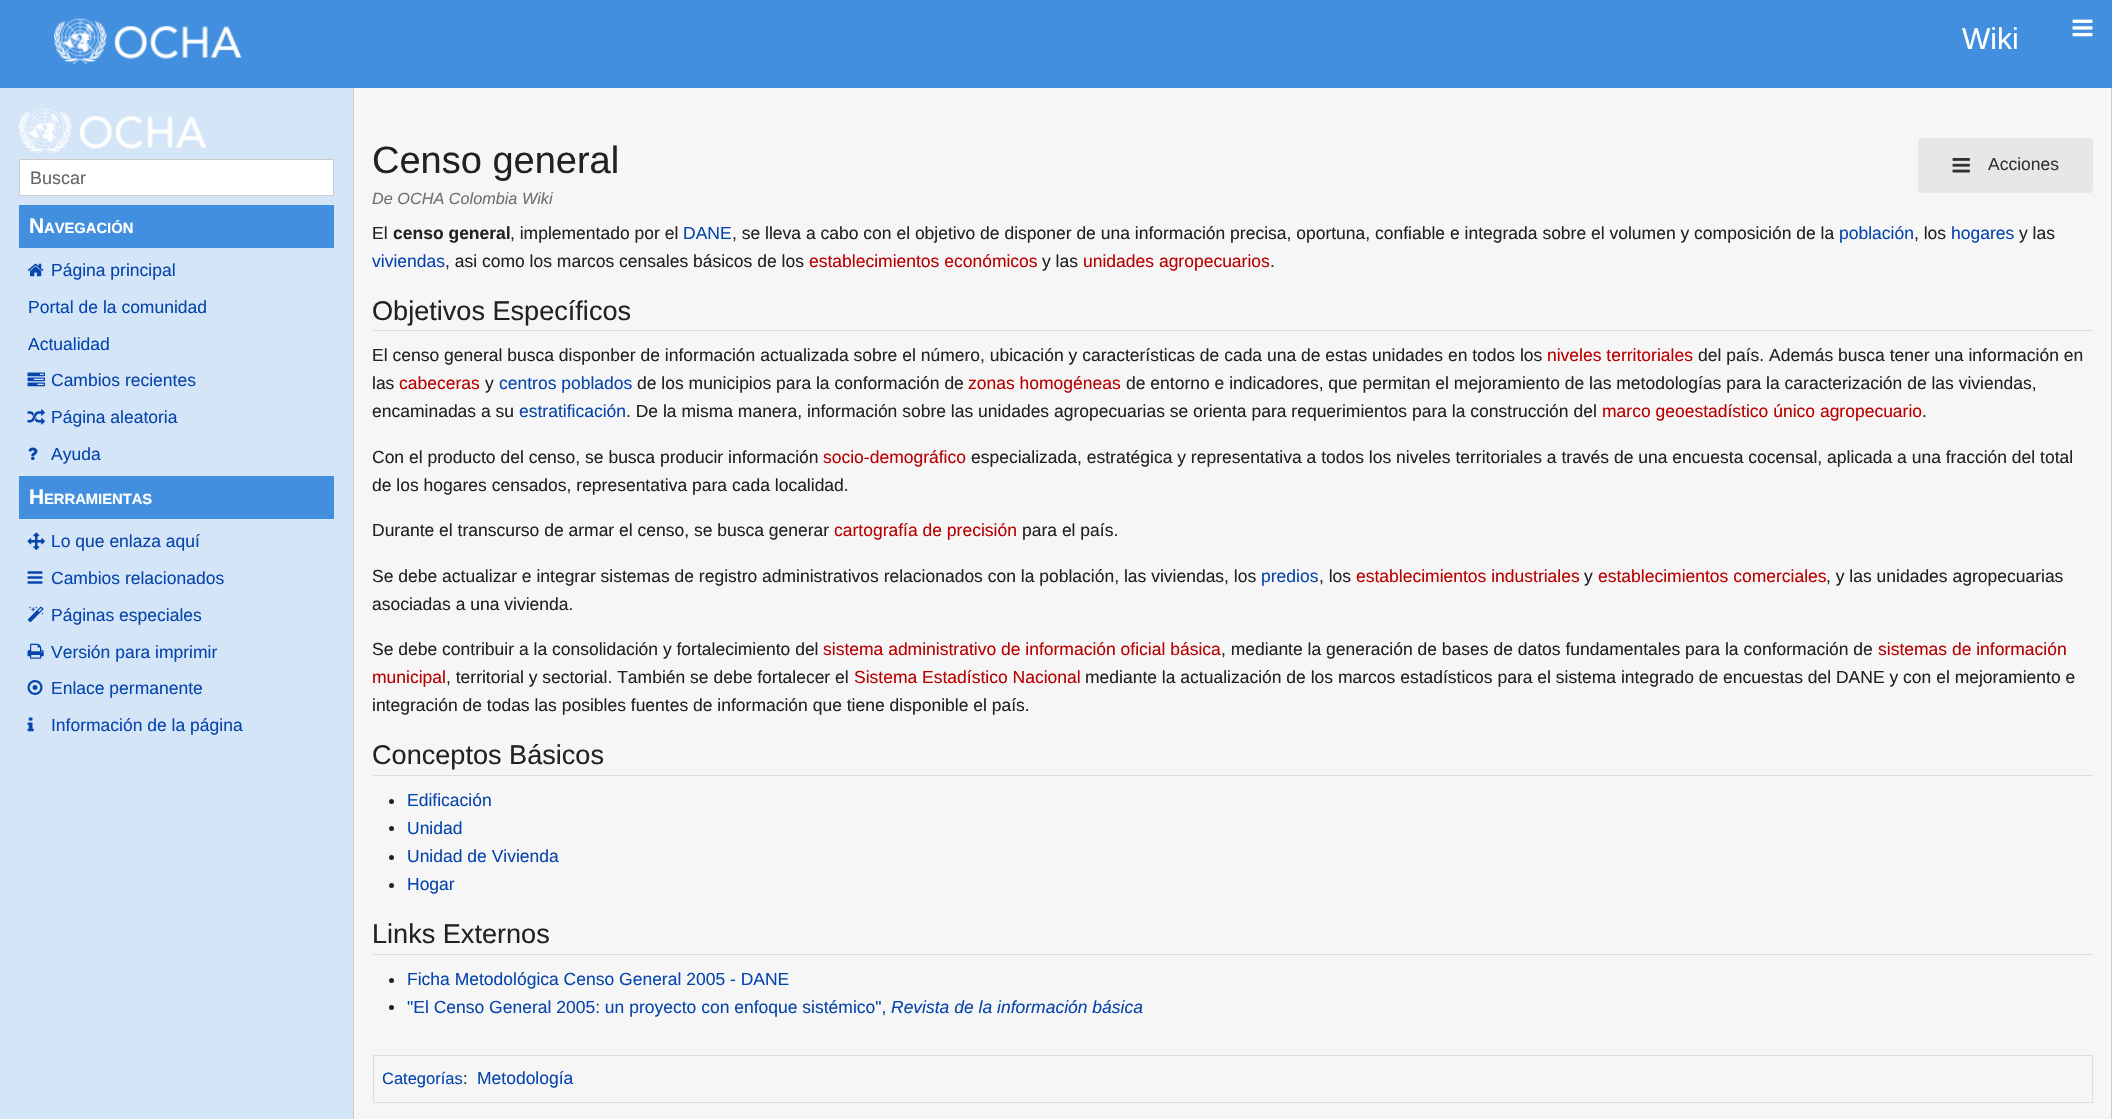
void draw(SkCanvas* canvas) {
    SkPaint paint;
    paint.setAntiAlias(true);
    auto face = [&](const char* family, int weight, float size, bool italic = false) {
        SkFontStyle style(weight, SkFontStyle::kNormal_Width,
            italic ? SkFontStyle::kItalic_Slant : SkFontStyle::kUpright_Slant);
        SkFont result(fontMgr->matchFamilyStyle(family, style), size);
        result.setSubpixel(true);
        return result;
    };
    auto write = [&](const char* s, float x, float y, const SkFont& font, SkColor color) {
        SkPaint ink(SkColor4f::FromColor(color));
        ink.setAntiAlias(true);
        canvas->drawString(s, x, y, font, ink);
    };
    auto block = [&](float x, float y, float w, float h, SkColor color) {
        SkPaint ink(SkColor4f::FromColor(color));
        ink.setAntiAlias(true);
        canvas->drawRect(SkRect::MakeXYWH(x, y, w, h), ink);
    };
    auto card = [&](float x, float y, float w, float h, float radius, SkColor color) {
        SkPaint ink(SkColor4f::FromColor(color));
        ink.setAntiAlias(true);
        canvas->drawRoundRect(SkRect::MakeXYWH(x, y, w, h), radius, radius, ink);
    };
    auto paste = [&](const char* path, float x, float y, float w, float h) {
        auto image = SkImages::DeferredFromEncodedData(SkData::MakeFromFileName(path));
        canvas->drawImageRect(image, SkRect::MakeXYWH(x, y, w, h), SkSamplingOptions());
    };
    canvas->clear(SkColorSetRGB(212, 229, 247));
    block(0, 0, 2112, 88, SkColorSetRGB(65, 143, 222));
    paste("pic1.png", 54, 18, 188, 46);
    auto kFont1 = face("Liberation Sans", 400, 30);
    write("Wiki", 1962, 49, kFont1, SK_ColorWHITE);
    paste("pic2.png", 2072, 19, 21, 18);
    paste("pic3.png", 18, 108, 189, 46);
    paint.setColor(SK_ColorWHITE);
    canvas->drawRect(SkRect::MakeXYWH(19.5f, 159.5f, 314, 36), paint);
    paint.setStyle(SkPaint::kStroke_Style);
    paint.setStrokeWidth(1);
    paint.setColor(SkColorSetRGB(204, 204, 204));
    canvas->drawRect(SkRect::MakeXYWH(19.5f, 159.5f, 314, 36), paint);
    auto kFont2 = face("Liberation Sans", 400, 18);
    write("Buscar", 30, 184, kFont2, SkColorSetRGB(102, 102, 102));
    block(19, 205, 315, 43, SkColorSetRGB(65, 143, 222));
    auto kFont3 = face("Liberation Sans", 700, 21);
    write("N", 29, 233, kFont3, SK_ColorWHITE);
    auto kFont4 = face("Liberation Sans", 700, 14.75f);
    write("AVEGACIÓN", 44, 233, kFont4, SK_ColorWHITE);
    paste("pic4.png", 27, 263, 17, 14);
    auto kFont5 = face("Liberation Sans", 400, 17.5f);
    write("Página principal", 51, 276, kFont5, SkColorSetRGB(6, 69, 173));
    write("Portal de la comunidad", 28, 313, kFont5, SkColorSetRGB(6, 69, 173));
    write("Actualidad", 28, 350, kFont5, SkColorSetRGB(6, 69, 173));
    paste("pic5.png", 27, 372, 18, 15);
    write("Cambios recientes", 51, 386, kFont5, SkColorSetRGB(6, 69, 173));
    paste("pic6.png", 27, 409, 18, 16);
    write("Página aleatoria", 51, 423, kFont5, SkColorSetRGB(6, 69, 173));
    paste("pic7.png", 28, 447, 10, 13);
    write("Ayuda", 51, 460, kFont5, SkColorSetRGB(6, 69, 173));
    block(19, 476, 315, 43, SkColorSetRGB(65, 143, 222));
    write("H", 29, 504, kFont3, SK_ColorWHITE);
    write("ERRAMIENTAS", 44, 504, kFont4, SK_ColorWHITE);
    paste("pic8.png", 27, 532, 18, 18);
    write("Lo que enlaza aquí", 51, 547, kFont5, SkColorSetRGB(6, 69, 173));
    paste("pic9.png", 27, 571, 16, 13);
    write("Cambios relacionados", 51, 584, kFont5, SkColorSetRGB(6, 69, 173));
    paste("pic10.png", 27, 606, 17, 17);
    write("Páginas especiales", 51, 621, kFont5, SkColorSetRGB(6, 69, 173));
    paste("pic11.png", 27, 643, 17, 16);
    write("Versión para imprimir", 51, 658, kFont5, SkColorSetRGB(6, 69, 173));
    paste("pic12.png", 27, 680, 16, 15);
    write("Enlace permanente", 51, 694, kFont5, SkColorSetRGB(6, 69, 173));
    paste("pic13.png", 27, 717, 7, 15);
    write("Información de la página", 51, 731, kFont5, SkColorSetRGB(6, 69, 173));
    block(354, 88, 1757, 1031, SkColorSetRGB(246, 246, 246));
    block(2111, 88, 1, 1031, SkColorSetRGB(204, 204, 204));
    block(353, 88, 1, 1031, SkColorSetRGB(204, 204, 204));
    auto kFont6 = face("Liberation Sans", 400, 38);
    write("Censo general", 372, 173, kFont6, SkColorSetRGB(34, 34, 34));
    auto kFont7 = face("Liberation Sans", 400, 16.25f, true);
    write("De OCHA Colombia Wiki", 372, 204, kFont7, SkColorSetRGB(111, 111, 111));
    write("El", 372, 239, kFont5, SkColorSetRGB(34, 34, 34));
    auto kFont8 = face("Liberation Sans", 700, 17.5f);
    write("censo general", 393, 239, kFont8, SkColorSetRGB(34, 34, 34));
    write(", implementado por el", 510, 239, kFont5, SkColorSetRGB(34, 34, 34));
    write("DANE", 683, 239, kFont5, SkColorSetRGB(6, 69, 173));
    write(", se lleva a cabo con el objetivo de disponer de una información precisa, oportuna, confiable e integrada sobre el volumen y composición de la", 732, 239, kFont5, SkColorSetRGB(34, 34, 34));
    write("población", 1839, 239, kFont5, SkColorSetRGB(6, 69, 173));
    write(", los", 1914, 239, kFont5, SkColorSetRGB(34, 34, 34));
    write("hogares", 1951, 239, kFont5, SkColorSetRGB(6, 69, 173));
    write("y las", 2019, 239, kFont5, SkColorSetRGB(34, 34, 34));
    write("viviendas", 372, 267, kFont5, SkColorSetRGB(6, 69, 173));
    write(", asi como los marcos censales básicos de los", 445, 267, kFont5, SkColorSetRGB(34, 34, 34));
    write("establecimientos económicos", 809, 267, kFont5, SkColorSetRGB(186, 0, 0));
    write("y las", 1042, 267, kFont5, SkColorSetRGB(34, 34, 34));
    write("unidades agropecuarios", 1083, 267, kFont5, SkColorSetRGB(186, 0, 0));
    write(".", 1270, 267, kFont5, SkColorSetRGB(34, 34, 34));
    block(373, 330, 1720, 1, SkColorSetRGB(221, 221, 221));
    auto kFont9 = face("Liberation Sans", 400, 27.1f);
    write("Objetivos Específicos", 372, 320, kFont9, SkColorSetRGB(34, 34, 34));
    write("El censo general busca disponber de información actualizada sobre el número, ubicación y características de cada una de estas unidades en todos los", 372, 361, kFont5, SkColorSetRGB(34, 34, 34));
    write("niveles territoriales", 1547, 361, kFont5, SkColorSetRGB(186, 0, 0));
    write("del país. Además busca tener una información en", 1698, 361, kFont5, SkColorSetRGB(34, 34, 34));
    write("las", 372, 389, kFont5, SkColorSetRGB(34, 34, 34));
    write("cabeceras", 399, 389, kFont5, SkColorSetRGB(186, 0, 0));
    write("y", 485, 389, kFont5, SkColorSetRGB(34, 34, 34));
    write("centros poblados", 499, 389, kFont5, SkColorSetRGB(6, 69, 173));
    write("de los municipios para la conformación de", 637, 389, kFont5, SkColorSetRGB(34, 34, 34));
    write("zonas homogéneas", 968, 389, kFont5, SkColorSetRGB(186, 0, 0));
    write("de entorno e indicadores, que permitan el mejoramiento de las metodologías para la caracterización de las viviendas,", 1126, 389, kFont5, SkColorSetRGB(34, 34, 34));
    write("encaminadas a su", 372, 417, kFont5, SkColorSetRGB(34, 34, 34));
    write("estratificación", 519, 417, kFont5, SkColorSetRGB(6, 69, 173));
    write(". De la misma manera, información sobre las unidades agropecuarias se orienta para requerimientos para la construcción del", 626, 417, kFont5, SkColorSetRGB(34, 34, 34));
    write("marco geoestadístico único agropecuario", 1602, 417, kFont5, SkColorSetRGB(186, 0, 0));
    write(".", 1922, 417, kFont5, SkColorSetRGB(34, 34, 34));
    write("Con el producto del censo, se busca producir información", 372, 463, kFont5, SkColorSetRGB(34, 34, 34));
    write("socio-demográfico", 823, 463, kFont5, SkColorSetRGB(186, 0, 0));
    write("especializada, estratégica y representativa a todos los niveles territoriales a través de una encuesta cocensal, aplicada a una fracción del total", 971, 463, kFont5, SkColorSetRGB(34, 34, 34));
    write("de los hogares censados, representativa para cada localidad.", 372, 491, kFont5, SkColorSetRGB(34, 34, 34));
    write("Durante el transcurso de armar el censo, se busca generar", 372, 536, kFont5, SkColorSetRGB(34, 34, 34));
    write("cartografía de precisión", 834, 536, kFont5, SkColorSetRGB(186, 0, 0));
    write("para el país.", 1022, 536, kFont5, SkColorSetRGB(34, 34, 34));
    write("Se debe actualizar e integrar sistemas de registro administrativos relacionados con la población, las viviendas, los", 372, 582, kFont5, SkColorSetRGB(34, 34, 34));
    write("predios", 1261, 582, kFont5, SkColorSetRGB(6, 69, 173));
    write(", los", 1319, 582, kFont5, SkColorSetRGB(34, 34, 34));
    write("establecimientos industriales", 1356, 582, kFont5, SkColorSetRGB(186, 0, 0));
    write("y", 1584, 582, kFont5, SkColorSetRGB(34, 34, 34));
    write("establecimientos comerciales", 1598, 582, kFont5, SkColorSetRGB(186, 0, 0));
    write(", y las unidades agropecuarias", 1826, 582, kFont5, SkColorSetRGB(34, 34, 34));
    write("asociadas a una vivienda.", 372, 610, kFont5, SkColorSetRGB(34, 34, 34));
    write("Se debe contribuir a la consolidación y fortalecimiento del", 372, 655, kFont5, SkColorSetRGB(34, 34, 34));
    write("sistema administrativo de información oficial básica", 823, 655, kFont5, SkColorSetRGB(186, 0, 0));
    write(", mediante la generación de bases de datos fundamentales para la conformación de", 1221, 655, kFont5, SkColorSetRGB(34, 34, 34));
    write("sistemas de información", 1878, 655, kFont5, SkColorSetRGB(186, 0, 0));
    write("municipal", 372, 683, kFont5, SkColorSetRGB(186, 0, 0));
    write(", territorial y sectorial. También se debe fortalecer el", 446, 683, kFont5, SkColorSetRGB(34, 34, 34));
    write("Sistema Estadístico Nacional", 854, 683, kFont5, SkColorSetRGB(186, 0, 0));
    write("mediante la actualización de los marcos estadísticos para el sistema integrado de encuestas del DANE y con el mejoramiento e", 1085, 683, kFont5, SkColorSetRGB(34, 34, 34));
    write("integración de todas las posibles fuentes de información que tiene disponible el país.", 372, 711, kFont5, SkColorSetRGB(34, 34, 34));
    block(373, 775, 1720, 1, SkColorSetRGB(221, 221, 221));
    write("Conceptos Básicos", 372, 764, kFont9, SkColorSetRGB(34, 34, 34));
    paint.setStyle(SkPaint::kFill_Style);
    paint.setColor(SkColorSetRGB(34, 34, 34));
    canvas->drawCircle(391.5f, 801.5f, 2.5f, paint);
    write("Edificación", 407, 806, kFont5, SkColorSetRGB(6, 69, 173));
    canvas->drawCircle(391.5f, 828.5f, 2.5f, paint);
    write("Unidad", 407, 834, kFont5, SkColorSetRGB(6, 69, 173));
    canvas->drawCircle(391.5f, 857.5f, 2.5f, paint);
    write("Unidad de Vivienda", 407, 862, kFont5, SkColorSetRGB(6, 69, 173));
    canvas->drawCircle(391.5f, 885.5f, 2.5f, paint);
    write("Hogar", 407, 890, kFont5, SkColorSetRGB(6, 69, 173));
    block(373, 954, 1720, 1, SkColorSetRGB(221, 221, 221));
    write("Links Externos", 372, 943, kFont9, SkColorSetRGB(34, 34, 34));
    canvas->drawCircle(391.5f, 980.5f, 2.5f, paint);
    write("Ficha Metodológica Censo General 2005 - DANE", 407, 985, kFont5, SkColorSetRGB(6, 69, 173));
    canvas->drawCircle(391.5f, 1007.5f, 2.5f, paint);
    write("\"El Censo General 2005: un proyecto con enfoque sistémico\",", 407, 1013, kFont5, SkColorSetRGB(6, 69, 173));
    auto kFont10 = face("Liberation Sans", 400, 17.5f, true);
    write("Revista de la información básica", 891, 1013, kFont10, SkColorSetRGB(6, 69, 173));
    card(1918, 138, 175, 55, 4, SkColorSetRGB(231, 231, 231));
    paste("pic14.png", 1952, 158, 18, 15);
    write("Acciones", 1988, 170, kFont5, SkColorSetRGB(51, 51, 51));
    paint.setStyle(SkPaint::kStroke_Style);
    paint.setColor(SkColorSetRGB(221, 221, 221));
    canvas->drawRect(SkRect::MakeXYWH(373.5f, 1055.5f, 1719, 47), paint);
    auto kFont11 = face("Liberation Sans", 400, 16.5f);
    write("Categorías", 382, 1084, kFont11, SkColorSetRGB(6, 69, 173));
    write(":", 463, 1084, kFont11, SkColorSetRGB(34, 34, 34));
    write("Metodología", 477, 1084, kFont5, SkColorSetRGB(6, 69, 173));
}
